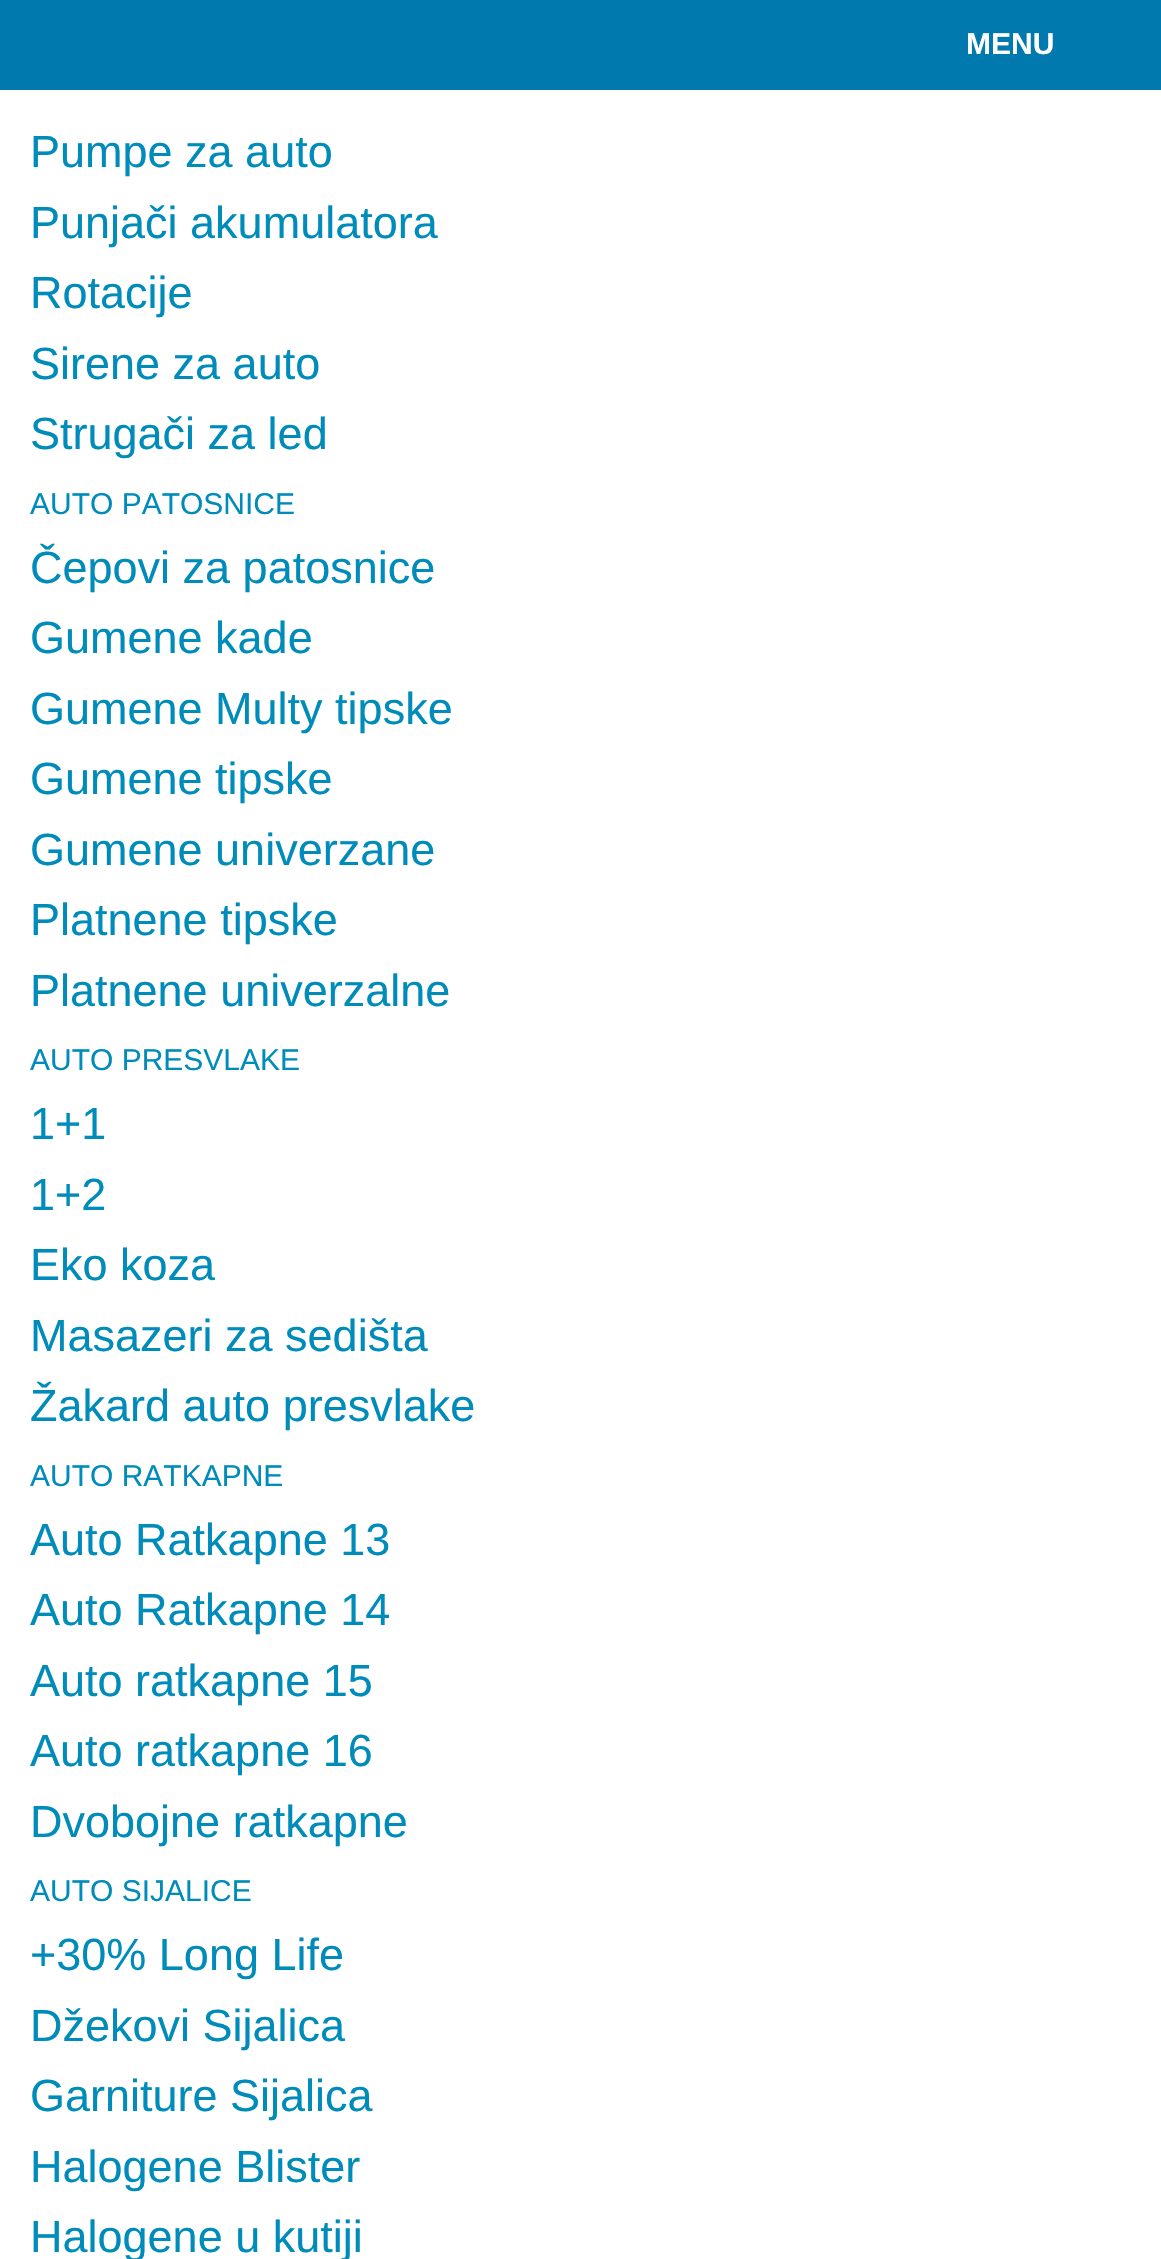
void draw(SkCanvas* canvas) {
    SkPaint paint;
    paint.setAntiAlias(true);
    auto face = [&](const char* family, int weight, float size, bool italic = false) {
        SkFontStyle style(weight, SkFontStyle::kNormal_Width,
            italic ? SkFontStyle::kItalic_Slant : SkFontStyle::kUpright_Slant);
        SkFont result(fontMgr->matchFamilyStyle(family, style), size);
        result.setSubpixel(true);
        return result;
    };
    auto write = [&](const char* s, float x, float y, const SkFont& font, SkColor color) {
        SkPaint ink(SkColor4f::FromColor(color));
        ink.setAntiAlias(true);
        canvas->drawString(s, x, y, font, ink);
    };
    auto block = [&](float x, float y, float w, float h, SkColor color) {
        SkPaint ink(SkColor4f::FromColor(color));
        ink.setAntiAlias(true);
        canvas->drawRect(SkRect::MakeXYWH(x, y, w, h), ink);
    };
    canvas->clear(SK_ColorWHITE);
    block(0, 0, 1161, 90, SkColorSetRGB(0, 121, 174));
    auto kFont1 = face("Liberation Sans", 700, 30);
    write("MENU", 966, 54, kFont1, SK_ColorWHITE);
    auto kFont2 = face("Liberation Sans", 400, 45);
    write("Pumpe za auto", 30, 167, kFont2, SkColorSetRGB(0, 140, 186));
    write("Punjači akumulatora", 30, 238, kFont2, SkColorSetRGB(0, 140, 186));
    write("Rotacije", 30, 308, kFont2, SkColorSetRGB(0, 140, 186));
    write("Sirene za auto", 30, 379, kFont2, SkColorSetRGB(0, 140, 186));
    write("Strugači za led", 30, 449, kFont2, SkColorSetRGB(0, 140, 186));
    auto kFont3 = face("Liberation Sans", 400, 30);
    write("AUTO PATOSNICE", 30, 514, kFont3, SkColorSetRGB(0, 140, 186));
    write("Čepovi za patosnice", 30, 583, kFont2, SkColorSetRGB(0, 140, 186));
    write("Gumene kade", 30, 653, kFont2, SkColorSetRGB(0, 140, 186));
    write("Gumene Multy tipske", 30, 724, kFont2, SkColorSetRGB(0, 140, 186));
    write("Gumene tipske", 30, 794, kFont2, SkColorSetRGB(0, 140, 186));
    write("Gumene univerzane", 30, 865, kFont2, SkColorSetRGB(0, 140, 186));
    write("Platnene tipske", 30, 935, kFont2, SkColorSetRGB(0, 140, 186));
    write("Platnene univerzalne", 30, 1006, kFont2, SkColorSetRGB(0, 140, 186));
    write("AUTO PRESVLAKE", 30, 1070, kFont3, SkColorSetRGB(0, 140, 186));
    write("1+1", 30, 1139, kFont2, SkColorSetRGB(0, 140, 186));
    write("1+2", 30, 1210, kFont2, SkColorSetRGB(0, 140, 186));
    write("Eko koza", 30, 1280, kFont2, SkColorSetRGB(0, 140, 186));
    write("Masazeri za sedišta", 30, 1351, kFont2, SkColorSetRGB(0, 140, 186));
    write("Žakard auto presvlake", 30, 1421, kFont2, SkColorSetRGB(0, 140, 186));
    write("AUTO RATKAPNE", 30, 1486, kFont3, SkColorSetRGB(0, 140, 186));
    write("Auto Ratkapne 13", 30, 1555, kFont2, SkColorSetRGB(0, 140, 186));
    write("Auto Ratkapne 14", 30, 1625, kFont2, SkColorSetRGB(0, 140, 186));
    write("Auto ratkapne 15", 30, 1696, kFont2, SkColorSetRGB(0, 140, 186));
    write("Auto ratkapne 16", 30, 1766, kFont2, SkColorSetRGB(0, 140, 186));
    write("Dvobojne ratkapne", 30, 1837, kFont2, SkColorSetRGB(0, 140, 186));
    write("AUTO SIJALICE", 30, 1901, kFont3, SkColorSetRGB(0, 140, 186));
    write("+30% Long Life", 30, 1970, kFont2, SkColorSetRGB(0, 140, 186));
    write("Džekovi Sijalica", 30, 2041, kFont2, SkColorSetRGB(0, 140, 186));
    write("Garniture Sijalica", 30, 2111, kFont2, SkColorSetRGB(0, 140, 186));
    write("Halogene Blister", 30, 2182, kFont2, SkColorSetRGB(0, 140, 186));
    write("Halogene u kutiji", 30, 2252, kFont2, SkColorSetRGB(0, 140, 186));
}
